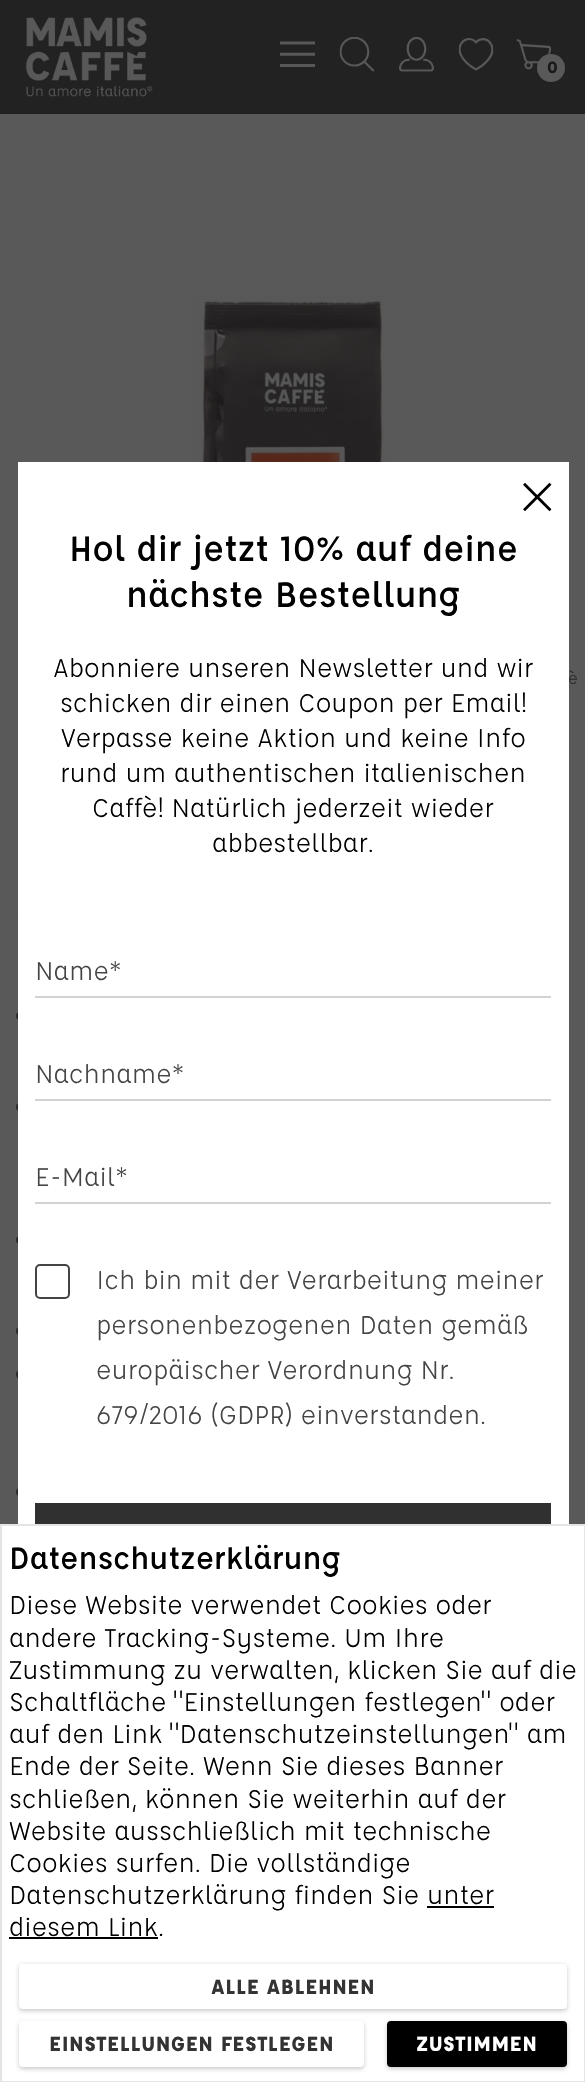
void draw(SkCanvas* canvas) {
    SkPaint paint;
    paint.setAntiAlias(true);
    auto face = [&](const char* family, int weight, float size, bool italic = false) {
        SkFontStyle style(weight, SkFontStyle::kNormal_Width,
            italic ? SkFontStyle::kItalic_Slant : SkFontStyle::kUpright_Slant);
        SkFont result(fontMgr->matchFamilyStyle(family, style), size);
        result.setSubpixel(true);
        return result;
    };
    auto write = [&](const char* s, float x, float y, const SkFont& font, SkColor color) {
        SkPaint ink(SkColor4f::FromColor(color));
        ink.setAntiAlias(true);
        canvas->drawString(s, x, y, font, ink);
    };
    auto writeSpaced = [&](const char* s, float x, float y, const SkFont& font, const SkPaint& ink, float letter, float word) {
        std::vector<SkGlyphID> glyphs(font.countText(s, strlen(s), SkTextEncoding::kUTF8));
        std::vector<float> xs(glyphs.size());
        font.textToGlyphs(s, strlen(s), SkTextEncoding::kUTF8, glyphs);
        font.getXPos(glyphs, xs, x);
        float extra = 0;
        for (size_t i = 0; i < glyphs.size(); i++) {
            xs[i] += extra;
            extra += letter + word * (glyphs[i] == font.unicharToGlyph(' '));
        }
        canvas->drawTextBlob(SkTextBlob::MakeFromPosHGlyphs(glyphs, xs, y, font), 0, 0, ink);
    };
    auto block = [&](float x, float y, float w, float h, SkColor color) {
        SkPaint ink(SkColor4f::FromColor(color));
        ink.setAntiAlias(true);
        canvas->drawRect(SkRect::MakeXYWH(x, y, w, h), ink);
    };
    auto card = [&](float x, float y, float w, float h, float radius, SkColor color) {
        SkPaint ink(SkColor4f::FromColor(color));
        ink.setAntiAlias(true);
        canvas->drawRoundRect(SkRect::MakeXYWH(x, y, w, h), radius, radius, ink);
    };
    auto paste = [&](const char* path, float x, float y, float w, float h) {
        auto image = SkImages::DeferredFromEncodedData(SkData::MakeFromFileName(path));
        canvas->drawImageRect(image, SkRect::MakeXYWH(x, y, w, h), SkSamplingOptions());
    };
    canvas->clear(SkColorSetRGB(89, 89, 89));
    block(0, 0, 585, 114, SkColorSetRGB(34, 34, 34));
    paste("pic1.png", 26, 17, 127, 80);
    paste("pic2.png", 280, 41, 35, 26);
    paste("pic3.png", 339, 37, 36, 35);
    paste("pic4.png", 399, 37, 35, 35);
    paste("pic5.png", 458, 38, 36, 33);
    paste("pic6.png", 516, 39, 35, 31);
    paint.setColor(SkColorSetARGB(51, 25, 25, 25));
    paint.setMaskFilter(SkMaskFilter::MakeBlur(kNormal_SkBlurStyle, 2));
    canvas->drawRoundRect(SkRect::MakeXYWH(537, 54, 28, 28), 14, 14, paint);
    paint.setMaskFilter(nullptr);
    paint.setColor(SkColorSetRGB(89, 89, 89));
    canvas->drawCircle(551, 68, 14, paint);
    auto kFont1 = face("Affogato", 700, 18);
    write("0", 547, 73, kFont1, SkColorSetRGB(25, 25, 25));
    auto kFont2 = face("Affogato", 400, 18);
    write("è", 568, 684, kFont2, SkColorSetRGB(42, 42, 42));
    card(16, 1012, 9, 8, 4, SkColorSetRGB(42, 42, 42));
    card(16, 1103, 9, 8, 4, SkColorSetRGB(42, 42, 42));
    card(16, 1236, 9, 8, 4, SkColorSetRGB(42, 42, 42));
    card(16, 1327, 9, 8, 4, SkColorSetRGB(42, 42, 42));
    paint.setColor(SkColorSetRGB(42, 42, 42));
    canvas->drawCircle(20.5f, 1374.5f, 4.5f, paint);
    card(16, 1488, 9, 8, 4, SkColorSetRGB(42, 42, 42));
    block(18, 462, 551, 1062, SK_ColorWHITE);
    paste("pic7.png", 523, 482, 29, 30);
    auto kFont3 = face("Affogato", 500, 38.5f);
    write("Hol dir jetzt 10% auf deine", 69, 561, kFont3, SK_ColorBLACK);
    write("nächste Bestellung", 126, 607, kFont3, SK_ColorBLACK);
    auto kFont4 = face("Affogato", 400, 28);
    write("Abonniere unseren Newsletter und wir", 53, 677, kFont4, SK_ColorBLACK);
    write("schicken dir einen Coupon per Email!", 60, 712, kFont4, SK_ColorBLACK);
    write("Verpasse keine Aktion und keine Info", 61, 747, kFont4, SK_ColorBLACK);
    write("rund um authentischen italienischen", 60, 782, kFont4, SK_ColorBLACK);
    write("Caffè! Natürlich jederzeit wieder", 92, 817, kFont4, SK_ColorBLACK);
    write("abbestellbar.", 212, 852, kFont4, SK_ColorBLACK);
    write("Name*", 35, 980, kFont4, SkColorSetRGB(68, 68, 68));
    block(35, 996, 516, 2, SkColorSetRGB(210, 210, 210));
    write("Nachname*", 35, 1083, kFont4, SkColorSetRGB(68, 68, 68));
    block(35, 1099, 516, 2, SkColorSetRGB(210, 210, 210));
    write("E-Mail*", 35, 1186, kFont4, SkColorSetRGB(68, 68, 68));
    block(35, 1202, 516, 2, SkColorSetRGB(210, 210, 210));
    paint.setStyle(SkPaint::kStroke_Style);
    paint.setStrokeWidth(2);
    paint.setColor(SkColorSetRGB(68, 68, 68));
    canvas->drawRoundRect(SkRect::MakeXYWH(36, 1265, 33, 33), 4, 4, paint);
    write("Ich bin mit der Verarbeitung meiner", 96, 1289, kFont4, SkColorSetRGB(68, 68, 68));
    write("personenbezogenen Daten gemäß", 96, 1334, kFont4, SkColorSetRGB(68, 68, 68));
    write("europäischer Verordnung Nr.", 96, 1379, kFont4, SkColorSetRGB(68, 68, 68));
    write("679/2016 (GDPR) einverstanden.", 96, 1424, kFont4, SkColorSetRGB(68, 68, 68));
    block(35, 1503, 516, 21, SkColorSetRGB(48, 48, 48));
    paste("pic8.png", 192, 295, 194, 167);
    paste("pic9.png", 17, 919, 1, 1);
    paint.setStyle(SkPaint::kFill_Style);
    paint.setColor(SK_ColorWHITE);
    canvas->drawRect(SkRect::MakeXYWH(1, 1525, 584, 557), paint);
    paint.setStyle(SkPaint::kStroke_Style);
    paint.setColor(SkColorSetRGB(228, 228, 228));
    canvas->drawRect(SkRect::MakeXYWH(1, 1525, 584, 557), paint);
    auto kFont5 = face("Affogato", 500, 33.5f);
    write("Datenschutzerklärung", 9, 1569, kFont5, SK_ColorBLACK);
    write("Diese Website verwendet Cookies oder", 9, 1614, kFont4, SK_ColorBLACK);
    write("andere Tracking-Systeme. Um Ihre", 9, 1647, kFont4, SK_ColorBLACK);
    write("Zustimmung zu verwalten, klicken Sie auf die", 9, 1679, kFont4, SK_ColorBLACK);
    write("Schaltfläche \"Einstellungen festlegen\" oder", 9, 1711, kFont4, SK_ColorBLACK);
    write("auf den Link \"Datenschutzeinstellungen\" am", 9, 1743, kFont4, SK_ColorBLACK);
    write("Ende der Seite. Wenn Sie dieses Banner", 9, 1775, kFont4, SK_ColorBLACK);
    write("schließen, können Sie weiterhin auf der", 9, 1808, kFont4, SK_ColorBLACK);
    write("Website ausschließlich mit technische", 9, 1840, kFont4, SK_ColorBLACK);
    write("Cookies surfen. Die vollständige", 9, 1872, kFont4, SK_ColorBLACK);
    write("Datenschutzerklärung finden Sie unter", 9, 1904, kFont4, SK_ColorBLACK);
    write("diesem Link.", 9, 1936, kFont4, SK_ColorBLACK);
    block(427, 1906, 67, 2, SK_ColorBLACK);
    block(9, 1937, 149, 2, SK_ColorBLACK);
    paint.setStyle(SkPaint::kFill_Style);
    paint.setColor(SkColorSetARGB(51, 0, 0, 0));
    paint.setMaskFilter(SkMaskFilter::MakeBlur(kNormal_SkBlurStyle, 2));
    canvas->drawRoundRect(SkRect::MakeXYWH(19, 1965, 548, 46), 4, 4, paint);
    paint.setMaskFilter(nullptr);
    paint.setColor(SK_ColorWHITE);
    canvas->drawRoundRect(SkRect::MakeXYWH(20, 1965, 546, 43), 3, 3, paint);
    paint.setStyle(SkPaint::kStroke_Style);
    canvas->drawRoundRect(SkRect::MakeXYWH(20, 1965, 546, 43), 3, 3, paint);
    auto kFont6 = face("Affogato", 700, 22.4f);
    paint.setStyle(SkPaint::kFill_Style);
    paint.setColor(SkColorSetRGB(51, 51, 51));
    writeSpaced("ALLE ABLEHNEN", 211, 1994, kFont6, paint, 0.45f, 0);
    paint.setColor(SkColorSetARGB(51, 0, 0, 0));
    paint.setMaskFilter(SkMaskFilter::MakeBlur(kNormal_SkBlurStyle, 2));
    canvas->drawRoundRect(SkRect::MakeXYWH(19, 2023, 345, 46), 4, 4, paint);
    paint.setMaskFilter(nullptr);
    paint.setColor(SK_ColorWHITE);
    canvas->drawRoundRect(SkRect::MakeXYWH(20, 2022, 343, 44), 3, 3, paint);
    paint.setStyle(SkPaint::kStroke_Style);
    canvas->drawRoundRect(SkRect::MakeXYWH(20, 2022, 343, 44), 3, 3, paint);
    paint.setStyle(SkPaint::kFill_Style);
    paint.setColor(SkColorSetRGB(51, 51, 51));
    writeSpaced("EINSTELLUNGEN FESTLEGEN", 49, 2051, kFont6, paint, 0.45f, 0);
    paint.setColor(SkColorSetARGB(51, 0, 0, 0));
    paint.setMaskFilter(SkMaskFilter::MakeBlur(kNormal_SkBlurStyle, 2));
    canvas->drawRoundRect(SkRect::MakeXYWH(387, 2023, 180, 46), 4, 4, paint);
    paint.setMaskFilter(nullptr);
    paint.setColor(SK_ColorBLACK);
    canvas->drawRoundRect(SkRect::MakeXYWH(388, 2022, 178, 44), 3, 3, paint);
    paint.setStyle(SkPaint::kStroke_Style);
    canvas->drawRoundRect(SkRect::MakeXYWH(388, 2022, 178, 44), 3, 3, paint);
    paint.setStyle(SkPaint::kFill_Style);
    paint.setColor(SK_ColorWHITE);
    writeSpaced("ZUSTIMMEN", 416, 2051, kFont6, paint, 0.45f, 0);
}
